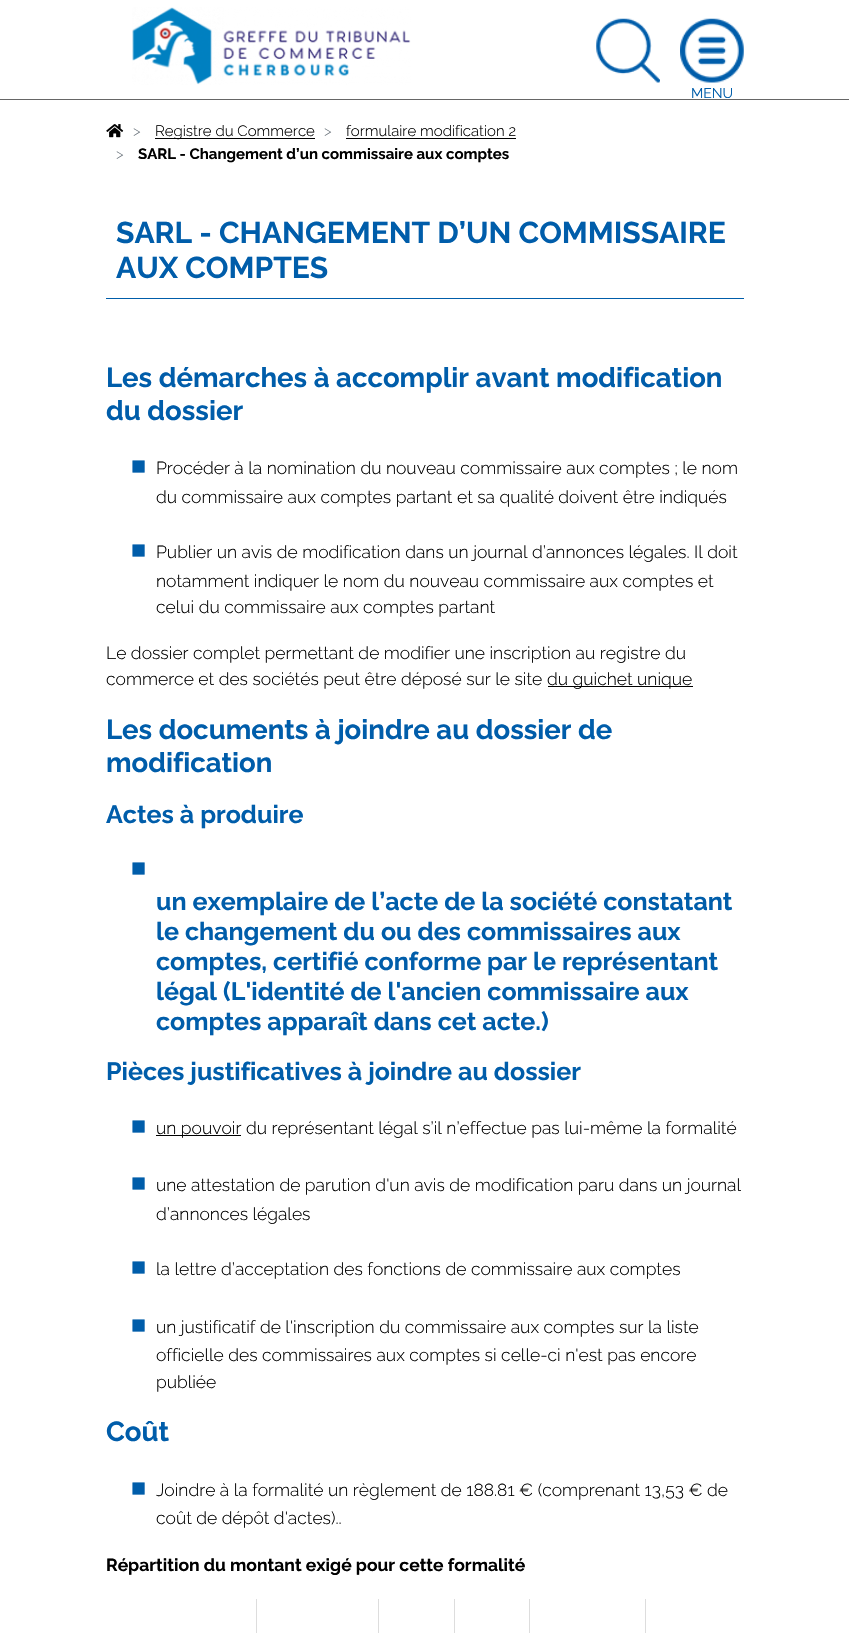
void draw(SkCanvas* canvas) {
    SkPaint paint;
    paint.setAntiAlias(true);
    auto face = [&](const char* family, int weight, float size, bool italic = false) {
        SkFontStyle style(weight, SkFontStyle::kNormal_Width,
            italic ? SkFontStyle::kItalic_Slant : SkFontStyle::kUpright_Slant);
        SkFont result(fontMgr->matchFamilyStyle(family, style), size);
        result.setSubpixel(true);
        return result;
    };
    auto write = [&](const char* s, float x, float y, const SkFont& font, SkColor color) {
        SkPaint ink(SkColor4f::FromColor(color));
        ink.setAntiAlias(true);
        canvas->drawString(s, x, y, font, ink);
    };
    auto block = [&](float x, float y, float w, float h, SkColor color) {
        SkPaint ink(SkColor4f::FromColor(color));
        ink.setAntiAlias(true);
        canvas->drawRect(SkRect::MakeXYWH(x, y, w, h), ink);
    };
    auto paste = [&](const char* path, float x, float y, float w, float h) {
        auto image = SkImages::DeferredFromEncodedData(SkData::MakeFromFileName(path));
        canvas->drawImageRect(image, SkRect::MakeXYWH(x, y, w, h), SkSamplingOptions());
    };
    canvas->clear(SK_ColorWHITE);
    block(0, 99, 849, 1, SkColorSetRGB(102, 102, 102));
    paste("pic1.png", 132, 7, 279, 78);
    paste("pic2.png", 596, 18, 64, 65);
    paste("pic3.png", 680, 18, 64, 65);
    auto kFont1 = face("Raleway", 400, 14);
    write("MENU", 691, 98, kFont1, SkColorSetRGB(0, 93, 170));
    paste("pic4.png", 106, 124, 18, 14);
    auto kFont2 = face("Raleway", 300, 15);
    write(">", 133, 136, kFont2, SkColorSetRGB(108, 117, 125));
    block(155, 138, 160, 1, SK_ColorBLACK);
    write("Registre du Commerce", 155, 136, kFont2, SK_ColorBLACK);
    write(">", 324, 136, kFont2, SkColorSetRGB(108, 117, 125));
    write("formulaire modification 2", 346, 136, kFont2, SK_ColorBLACK);
    block(346, 138, 170, 1, SK_ColorBLACK);
    write(">", 116, 159, kFont2, SkColorSetRGB(108, 117, 125));
    auto kFont3 = face("Raleway", 700, 15);
    write("SARL - Changement d’un commissaire aux comptes", 138, 159, kFont3, SK_ColorBLACK);
    block(106, 298, 638, 1, SkColorSetRGB(0, 93, 170));
    auto kFont4 = face("Raleway", 700, 30);
    write("SARL - CHANGEMENT D’UN COMMISSAIRE", 116, 243, kFont4, SkColorSetRGB(0, 93, 170));
    write("AUX COMPTES", 116, 278, kFont4, SkColorSetRGB(0, 93, 170));
    auto kFont5 = face("Raleway", 700, 27.5f);
    write("Les démarches à accomplir avant modification", 106, 387, kFont5, SkColorSetRGB(0, 93, 170));
    write("du dossier", 106, 420, kFont5, SkColorSetRGB(0, 93, 170));
    auto kFont6 = face("Liberation Sans", 400, 25);
    write("■", 131, 474, kFont6, SkColorSetRGB(0, 93, 170));
    auto kFont7 = face("Raleway", 300, 17.5f);
    write("Procéder à la nomination du nouveau commissaire aux comptes ; le nom", 156, 474, kFont7, SK_ColorBLACK);
    write("du commissaire aux comptes partant et sa qualité doivent être indiqués", 156, 503, kFont7, SK_ColorBLACK);
    write("■", 131, 558, kFont6, SkColorSetRGB(0, 93, 170));
    write("Publier un avis de modification dans un journal d’annonces légales. Il doit", 156, 558, kFont7, SK_ColorBLACK);
    write("notamment indiquer le nom du nouveau commissaire aux comptes et", 156, 587, kFont7, SK_ColorBLACK);
    write("celui du commissaire aux comptes partant", 156, 613, kFont7, SK_ColorBLACK);
    write("Le dossier complet permettant de modifier une inscription au registre du", 106, 659, kFont7, SK_ColorBLACK);
    write("commerce et des sociétés peut être déposé sur le site", 106, 685, kFont7, SK_ColorBLACK);
    block(548, 686, 145, 1, SK_ColorBLACK);
    write("du guichet unique", 547, 685, kFont7, SK_ColorBLACK);
    write("Les documents à joindre au dossier de", 106, 739, kFont5, SkColorSetRGB(0, 93, 170));
    write("modification", 106, 772, kFont5, SkColorSetRGB(0, 93, 170));
    auto kFont8 = face("Raleway", 700, 25);
    write("Actes à produire", 106, 823, kFont8, SkColorSetRGB(0, 93, 170));
    write("■", 131, 876, kFont6, SkColorSetRGB(0, 93, 170));
    write("un exemplaire de l’acte de la société constatant", 156, 910, kFont8, SkColorSetRGB(0, 93, 170));
    write("le changement du ou des commissaires aux", 156, 940, kFont8, SkColorSetRGB(0, 93, 170));
    write("comptes, certifié conforme par le représentant", 156, 970, kFont8, SkColorSetRGB(0, 93, 170));
    write("légal (L'identité de l'ancien commissaire aux", 156, 1000, kFont8, SkColorSetRGB(0, 93, 170));
    write("comptes apparaît dans cet acte.)", 156, 1030, kFont8, SkColorSetRGB(0, 93, 170));
    write("Pièces justificatives à joindre au dossier", 106, 1080, kFont8, SkColorSetRGB(0, 93, 170));
    write("■", 131, 1134, kFont6, SkColorSetRGB(0, 93, 170));
    block(156, 1135, 85, 1, SK_ColorBLACK);
    write("un pouvoir du représentant légal s’il n’effectue pas lui-même la formalité", 156, 1134, kFont7, SK_ColorBLACK);
    write("■", 131, 1191, kFont6, SkColorSetRGB(0, 93, 170));
    write("une attestation de parution d'un avis de modification paru dans un journal", 156, 1191, kFont7, SK_ColorBLACK);
    write("d’annonces légales", 156, 1220, kFont7, SK_ColorBLACK);
    write("■", 131, 1275, kFont6, SkColorSetRGB(0, 93, 170));
    write("la lettre d’acceptation des fonctions de commissaire aux comptes", 156, 1275, kFont7, SK_ColorBLACK);
    write("■", 131, 1333, kFont6, SkColorSetRGB(0, 93, 170));
    write("un justificatif de l'inscription du commissaire aux comptes sur la liste", 156, 1333, kFont7, SK_ColorBLACK);
    write("officielle des commissaires aux comptes si celle-ci n'est pas encore", 156, 1361, kFont7, SK_ColorBLACK);
    write("publiée", 156, 1388, kFont7, SK_ColorBLACK);
    write("Coût", 106, 1441, kFont5, SkColorSetRGB(0, 93, 170));
    write("■", 131, 1496, kFont6, SkColorSetRGB(0, 93, 170));
    write("Joindre à la formalité un règlement de 188.81 € (comprenant 13,53 € de", 156, 1496, kFont7, SK_ColorBLACK);
    write("coût de dépôt d'actes)..", 156, 1524, kFont7, SK_ColorBLACK);
    auto kFont9 = face("Raleway", 700, 17.5f);
    write("Répartition du montant exigé pour cette formalité", 106, 1571, kFont9, SK_ColorBLACK);
    block(256, 1599, 1, 34, SkColorSetRGB(221, 221, 221));
    block(378, 1599, 1, 34, SkColorSetRGB(221, 221, 221));
    block(454, 1599, 1, 34, SkColorSetRGB(221, 221, 221));
    block(529, 1599, 1, 34, SkColorSetRGB(221, 221, 221));
    block(645, 1599, 1, 34, SkColorSetRGB(221, 221, 221));
}
